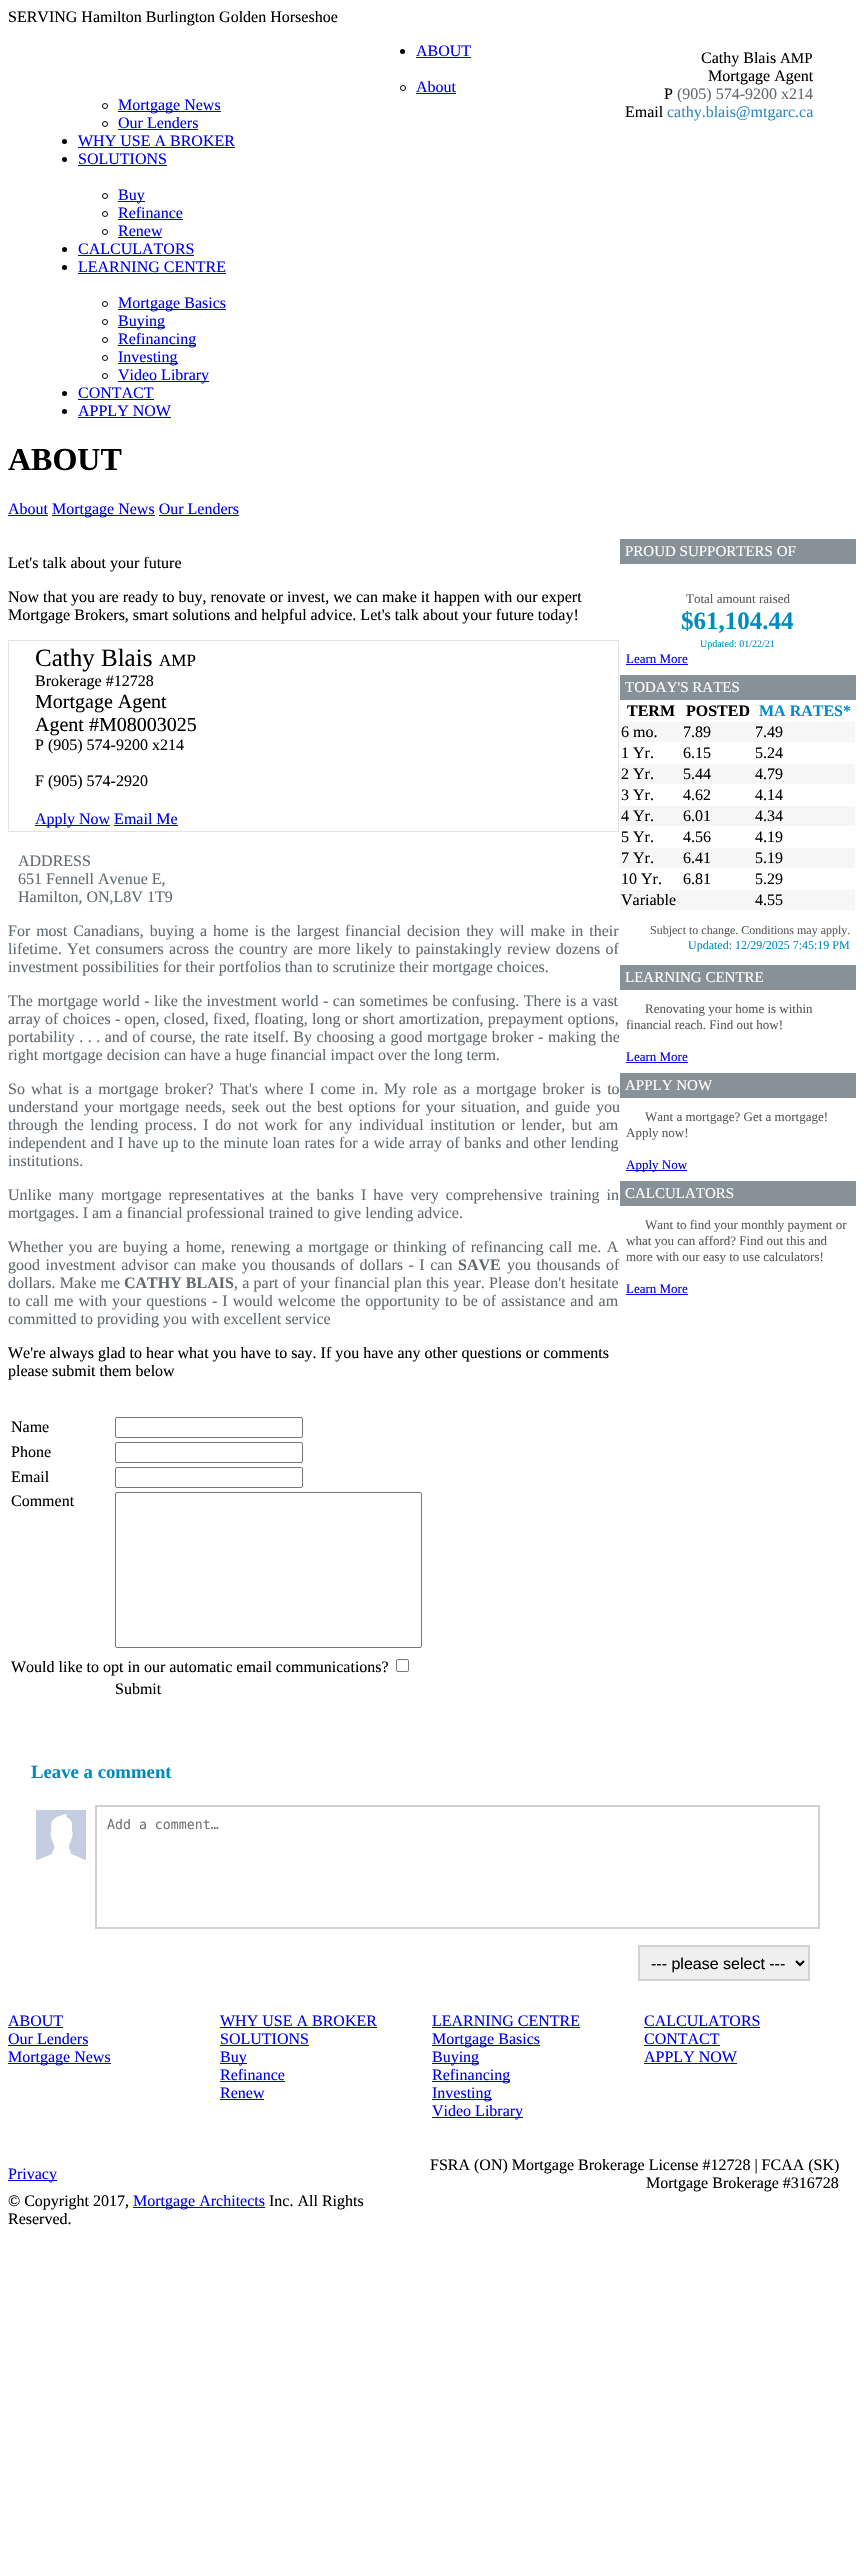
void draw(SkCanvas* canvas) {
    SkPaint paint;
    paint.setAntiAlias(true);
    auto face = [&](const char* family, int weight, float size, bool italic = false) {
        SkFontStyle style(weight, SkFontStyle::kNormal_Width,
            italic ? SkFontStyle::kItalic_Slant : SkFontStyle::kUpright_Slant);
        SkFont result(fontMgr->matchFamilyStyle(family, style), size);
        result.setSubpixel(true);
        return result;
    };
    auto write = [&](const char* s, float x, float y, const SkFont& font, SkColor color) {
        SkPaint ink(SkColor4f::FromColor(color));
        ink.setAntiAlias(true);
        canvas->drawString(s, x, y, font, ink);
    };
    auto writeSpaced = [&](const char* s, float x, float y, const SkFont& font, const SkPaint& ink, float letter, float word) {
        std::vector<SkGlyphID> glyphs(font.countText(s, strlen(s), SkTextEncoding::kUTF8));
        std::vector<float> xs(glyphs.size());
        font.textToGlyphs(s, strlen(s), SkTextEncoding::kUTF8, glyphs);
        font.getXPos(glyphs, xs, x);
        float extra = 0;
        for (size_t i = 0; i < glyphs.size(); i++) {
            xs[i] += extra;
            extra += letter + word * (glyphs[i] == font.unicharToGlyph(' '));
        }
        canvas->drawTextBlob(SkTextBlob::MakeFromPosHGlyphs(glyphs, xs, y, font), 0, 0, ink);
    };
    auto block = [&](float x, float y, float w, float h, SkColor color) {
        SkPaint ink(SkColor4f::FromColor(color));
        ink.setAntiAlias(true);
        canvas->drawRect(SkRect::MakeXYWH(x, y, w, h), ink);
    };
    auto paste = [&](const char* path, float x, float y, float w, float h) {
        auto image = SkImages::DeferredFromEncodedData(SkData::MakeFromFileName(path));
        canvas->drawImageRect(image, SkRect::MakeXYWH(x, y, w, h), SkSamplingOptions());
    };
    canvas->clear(SK_ColorWHITE);
    auto kFont1 = face("Liberation Serif", 400, 16);
    write("SERVING Hamilton Burlington Golden Horseshoe", 8, 22, kFont1, SK_ColorBLACK);
    paint.setColor(SK_ColorBLACK);
    canvas->drawCircle(402.5f, 51.5f, 2.5f, paint);
    write("ABOUT", 416, 56, kFont1, SkColorSetRGB(0, 0, 238));
    block(416, 57, 55, 1, SkColorSetRGB(0, 0, 238));
    paint.setStyle(SkPaint::kStroke_Style);
    paint.setStrokeWidth(1);
    canvas->drawCircle(403, 88, 2.5f, paint);
    write("About", 416, 92, kFont1, SkColorSetRGB(0, 0, 238));
    block(416, 93, 40, 1, SkColorSetRGB(0, 0, 238));
    canvas->drawCircle(105, 106, 2.5f, paint);
    block(118, 111, 103, 1, SkColorSetRGB(0, 0, 238));
    write("Mortgage News", 118, 110, kFont1, SkColorSetRGB(0, 0, 238));
    canvas->drawCircle(105, 124, 2.5f, paint);
    write("Our Lenders", 118, 128, kFont1, SkColorSetRGB(0, 0, 238));
    block(118, 129, 80, 1, SkColorSetRGB(0, 0, 238));
    paint.setStyle(SkPaint::kFill_Style);
    canvas->drawCircle(64.5f, 141.5f, 2.5f, paint);
    write("WHY USE A BROKER", 78, 146, kFont1, SkColorSetRGB(0, 0, 238));
    block(78, 147, 157, 1, SkColorSetRGB(0, 0, 238));
    canvas->drawCircle(64.5f, 159.5f, 2.5f, paint);
    write("SOLUTIONS", 78, 164, kFont1, SkColorSetRGB(0, 0, 238));
    block(78, 165, 89, 1, SkColorSetRGB(0, 0, 238));
    paint.setStyle(SkPaint::kStroke_Style);
    canvas->drawCircle(105, 196, 2.5f, paint);
    block(118, 201, 27, 1, SkColorSetRGB(0, 0, 238));
    write("Buy", 118, 200, kFont1, SkColorSetRGB(0, 0, 238));
    canvas->drawCircle(105, 214, 2.5f, paint);
    write("Refinance", 118, 218, kFont1, SkColorSetRGB(0, 0, 238));
    block(118, 219, 65, 1, SkColorSetRGB(0, 0, 238));
    canvas->drawCircle(105, 232, 2.5f, paint);
    write("Renew", 118, 236, kFont1, SkColorSetRGB(0, 0, 238));
    block(118, 237, 44, 1, SkColorSetRGB(0, 0, 238));
    paint.setStyle(SkPaint::kFill_Style);
    canvas->drawCircle(64.5f, 249.5f, 2.5f, paint);
    write("CALCULATORS", 78, 254, kFont1, SkColorSetRGB(0, 0, 238));
    block(78, 255, 116, 1, SkColorSetRGB(0, 0, 238));
    canvas->drawCircle(64.5f, 267.5f, 2.5f, paint);
    write("LEARNING CENTRE", 78, 272, kFont1, SkColorSetRGB(0, 0, 238));
    block(78, 273, 148, 1, SkColorSetRGB(0, 0, 238));
    paint.setStyle(SkPaint::kStroke_Style);
    canvas->drawCircle(105, 304, 2.5f, paint);
    block(118, 309, 108, 1, SkColorSetRGB(0, 0, 238));
    write("Mortgage Basics", 118, 308, kFont1, SkColorSetRGB(0, 0, 238));
    canvas->drawCircle(105, 322, 2.5f, paint);
    block(118, 327, 47, 1, SkColorSetRGB(0, 0, 238));
    write("Buying", 118, 326, kFont1, SkColorSetRGB(0, 0, 238));
    canvas->drawCircle(105, 340, 2.5f, paint);
    block(118, 345, 78, 1, SkColorSetRGB(0, 0, 238));
    write("Refinancing", 118, 344, kFont1, SkColorSetRGB(0, 0, 238));
    canvas->drawCircle(105, 358, 2.5f, paint);
    block(118, 363, 60, 1, SkColorSetRGB(0, 0, 238));
    write("Investing", 118, 362, kFont1, SkColorSetRGB(0, 0, 238));
    canvas->drawCircle(105, 376, 2.5f, paint);
    block(118, 381, 91, 1, SkColorSetRGB(0, 0, 238));
    write("Video Library", 118, 380, kFont1, SkColorSetRGB(0, 0, 238));
    paint.setStyle(SkPaint::kFill_Style);
    canvas->drawCircle(64.5f, 393.5f, 2.5f, paint);
    write("CONTACT", 78, 398, kFont1, SkColorSetRGB(0, 0, 238));
    block(78, 399, 76, 1, SkColorSetRGB(0, 0, 238));
    canvas->drawCircle(64.5f, 411.5f, 2.5f, paint);
    write("APPLY NOW", 78, 416, kFont1, SkColorSetRGB(0, 0, 238));
    block(78, 417, 93, 1, SkColorSetRGB(0, 0, 238));
    write("Cathy Blais", 701, 63, kFont1, SK_ColorBLACK);
    auto kFont2 = face("Liberation Serif", 400, 15);
    write("AMP", 780, 63, kFont2, SK_ColorBLACK);
    write("Mortgage Agent", 708, 81, kFont1, SK_ColorBLACK);
    write("P", 664, 99, kFont1, SK_ColorBLACK);
    write("(905) 574-9200 x214", 677, 99, kFont1, SkColorSetRGB(97, 106, 112));
    write("Email", 625, 117, kFont1, SK_ColorBLACK);
    write("cathy.blais@mtgarc.ca", 667, 117, kFont1, SkColorSetRGB(45, 139, 193));
    auto kFont3 = face("Liberation Serif", 700, 32);
    write("ABOUT", 8, 470, kFont3, SK_ColorBLACK);
    write("About", 8, 514, kFont1, SkColorSetRGB(0, 0, 238));
    block(8, 515, 40, 1, SkColorSetRGB(0, 0, 238));
    block(52, 515, 103, 1, SkColorSetRGB(0, 0, 238));
    write("Mortgage News Our Lenders", 52, 514, kFont1, SkColorSetRGB(0, 0, 238));
    block(159, 515, 80, 1, SkColorSetRGB(0, 0, 238));
    write("Let's talk about your future", 8, 568, kFont1, SK_ColorBLACK);
    write("Now that you are ready to buy, renovate or invest, we can make it happen with our expert", 8, 602, kFont1, SK_ColorBLACK);
    write("Mortgage Brokers, smart solutions and helpful advice. Let's talk about your future today!", 8, 620, kFont1, SK_ColorBLACK);
    paint.setStyle(SkPaint::kStroke_Style);
    paint.setColor(SkColorSetRGB(227, 227, 227));
    canvas->drawRect(SkRect::MakeXYWH(8.5f, 640.5f, 610, 191), paint);
    auto kFont4 = face("Liberation Serif", 400, 25);
    write("Cathy Blais", 35, 666, kFont4, SK_ColorBLACK);
    auto kFont5 = face("Liberation Serif", 400, 17);
    write("AMP", 159, 666, kFont5, SK_ColorBLACK);
    write("Brokerage #12728", 35, 686, kFont1, SK_ColorBLACK);
    auto kFont6 = face("Liberation Serif", 400, 20);
    write("Mortgage Agent", 35, 708, kFont6, SK_ColorBLACK);
    write("Agent #M08003025", 35, 731, kFont6, SK_ColorBLACK);
    write("P (905) 574-9200 x214", 35, 750, kFont1, SK_ColorBLACK);
    write("F (905) 574-2920", 35, 786, kFont1, SK_ColorBLACK);
    block(35, 825, 75, 1, SkColorSetRGB(0, 0, 238));
    write("Apply Now Email Me", 35, 824, kFont1, SkColorSetRGB(0, 0, 238));
    block(114, 825, 64, 1, SkColorSetRGB(0, 0, 238));
    write("ADDRESS", 18, 866, kFont1, SkColorSetRGB(97, 106, 112));
    write("651 Fennell Avenue E,", 18, 884, kFont1, SkColorSetRGB(97, 106, 112));
    write("Hamilton, ON,L8V 1T9", 18, 902, kFont1, SkColorSetRGB(97, 106, 112));
    paint.setStyle(SkPaint::kFill_Style);
    paint.setColor(SkColorSetRGB(97, 106, 112));
    writeSpaced("For most Canadians, buying a home is the largest financial decision they will make in their", 8, 936, kFont1, paint, 0, 1.9f);
    writeSpaced("lifetime. Yet consumers across the country are more likely to painstakingly review dozens of", 8, 954, kFont1, paint, 0, 1.25f);
    write("investment possibilities for their portfolios than to scrutinize their mortgage choices.", 8, 972, kFont1, SkColorSetRGB(97, 106, 112));
    writeSpaced("The mortgage world - like the investment world - can sometimes be confusing. There is a vast", 8, 1006, kFont1, paint, 0, 0.5f);
    writeSpaced("array of choices - open, closed, fixed, floating, long or short amortization, prepayment options,", 8, 1024, kFont1, paint, 0, 0.25f);
    writeSpaced("portability . . . and of course, the rate itself. By choosing a good mortgage broker - making the", 8, 1042, kFont1, paint, 0, 0.5f);
    write("right mortgage decision can have a huge financial impact over the long term.", 8, 1060, kFont1, SkColorSetRGB(97, 106, 112));
    writeSpaced("So what is a mortgage broker? That's where I come in. My role as a mortgage broker is to", 8, 1094, kFont1, paint, 0, 2.1f);
    writeSpaced("understand your mortgage needs, seek out the best options for your situation, and guide you", 8, 1112, kFont1, paint, 0, 1.75f);
    writeSpaced("through the lending process. I do not work for any individual institution or lender, but am", 8, 1130, kFont1, paint, 0, 2.5f);
    writeSpaced("independent and I have up to the minute loan rates for a wide array of banks and other lending", 8, 1148, kFont1, paint, 0, 0.4f);
    write("institutions.", 8, 1166, kFont1, SkColorSetRGB(97, 106, 112));
    writeSpaced("Unlike many mortgage representatives at the banks I have very comprehensive training in", 8, 1200, kFont1, paint, 0, 3);
    write("mortgages. I am a financial professional trained to give lending advice.", 8, 1218, kFont1, SkColorSetRGB(97, 106, 112));
    writeSpaced("Whether you are buying a home, renewing a mortgage or thinking of refinancing call me. A", 8, 1252, kFont1, paint, 0, 1.5f);
    writeSpaced("good investment advisor can make you thousands of dollars - I can", 8, 1270, kFont1, paint, 0, 1.5f);
    auto kFont7 = face("Liberation Serif", 700, 16);
    write("SAVE", 458, 1270, kFont7, SkColorSetRGB(97, 106, 112));
    writeSpaced("you thousands of", 507, 1270, kFont1, paint, 0, 1.5f);
    writeSpaced("dollars. Make me", 8, 1288, kFont1, paint, 0, 0.25f);
    write("CATHY BLAIS", 124, 1288, kFont7, SkColorSetRGB(97, 106, 112));
    writeSpaced(", a part of your financial plan this year. Please don't hesitate", 234, 1288, kFont1, paint, 0, 0.25f);
    writeSpaced("to call me with your questions - I would welcome the opportunity to be of assistance and am", 8, 1306, kFont1, paint, 0, 1.1f);
    write("committed to providing you with excellent service", 8, 1324, kFont1, SkColorSetRGB(97, 106, 112));
    write("We're always glad to hear what you have to say. If you have any other questions or comments", 8, 1358, kFont1, SK_ColorBLACK);
    write("please submit them below", 8, 1376, kFont1, SK_ColorBLACK);
    write("Name", 11, 1432, kFont1, SK_ColorBLACK);
    paint.setStyle(SkPaint::kStroke_Style);
    paint.setColor(SkColorSetRGB(118, 118, 118));
    canvas->drawRoundRect(SkRect::MakeXYWH(115.5f, 1417.5f, 187, 20), 1.5f, 1.5f, paint);
    write("Phone", 11, 1457, kFont1, SK_ColorBLACK);
    canvas->drawRoundRect(SkRect::MakeXYWH(115.5f, 1442.5f, 187, 20), 1.5f, 1.5f, paint);
    write("Email", 11, 1482, kFont1, SK_ColorBLACK);
    canvas->drawRoundRect(SkRect::MakeXYWH(115.5f, 1467.5f, 187, 20), 1.5f, 1.5f, paint);
    write("Comment", 11, 1506, kFont1, SK_ColorBLACK);
    canvas->drawRoundRect(SkRect::MakeXYWH(115.5f, 1492.5f, 306, 155), 1.5f, 1.5f, paint);
    write("Would like to opt in our automatic email communications?", 11, 1672, kFont1, SK_ColorBLACK);
    canvas->drawRoundRect(SkRect::MakeXYWH(396.5f, 1659.5f, 12, 12), 1.5f, 1.5f, paint);
    write("Submit", 115, 1694, kFont1, SK_ColorBLACK);
    block(620, 539, 236, 25, SkColorSetRGB(136, 145, 151));
    write("PROUD SUPPORTERS OF", 625, 556, kFont2, SK_ColorWHITE);
    auto kFont8 = face("Liberation Serif", 400, 13);
    write("Total amount raised", 686, 603, kFont8, SkColorSetRGB(91, 91, 91));
    auto kFont9 = face("Liberation Serif", 700, 25);
    write("$61,104.44", 681, 629, kFont9, SkColorSetRGB(0, 140, 191));
    auto kFont10 = face("Liberation Serif", 400, 10);
    write("Updated: 01/22/21", 700, 647, kFont10, SkColorSetRGB(0, 140, 191));
    write("Learn More", 626, 663, kFont8, SkColorSetRGB(0, 0, 238));
    block(626, 664, 62, 1, SkColorSetRGB(0, 0, 238));
    block(620, 675, 236, 25, SkColorSetRGB(136, 145, 151));
    write("TODAY'S RATES", 625, 692, kFont2, SK_ColorWHITE);
    write("TERM", 627, 716, kFont7, SK_ColorBLACK);
    write("POSTED", 686, 716, kFont7, SK_ColorBLACK);
    write("MA RATES*", 759, 716, kFont7, SkColorSetRGB(0, 139, 207));
    block(620, 722, 235, 20, SkColorSetRGB(246, 246, 246));
    write("6 mo.", 621, 737, kFont1, SK_ColorBLACK);
    write("7.89", 683, 737, kFont1, SK_ColorBLACK);
    write("7.49", 755, 737, kFont1, SK_ColorBLACK);
    write("1 Yr.", 621, 758, kFont1, SK_ColorBLACK);
    write("6.15", 683, 758, kFont1, SK_ColorBLACK);
    write("5.24", 755, 758, kFont1, SK_ColorBLACK);
    block(620, 764, 235, 20, SkColorSetRGB(246, 246, 246));
    write("2 Yr.", 621, 779, kFont1, SK_ColorBLACK);
    write("5.44", 683, 779, kFont1, SK_ColorBLACK);
    write("4.79", 755, 779, kFont1, SK_ColorBLACK);
    write("3 Yr.", 621, 800, kFont1, SK_ColorBLACK);
    write("4.62", 683, 800, kFont1, SK_ColorBLACK);
    write("4.14", 755, 800, kFont1, SK_ColorBLACK);
    block(620, 806, 235, 20, SkColorSetRGB(246, 246, 246));
    write("4 Yr.", 621, 821, kFont1, SK_ColorBLACK);
    write("6.01", 683, 821, kFont1, SK_ColorBLACK);
    write("4.34", 755, 821, kFont1, SK_ColorBLACK);
    write("5 Yr.", 621, 842, kFont1, SK_ColorBLACK);
    write("4.56", 683, 842, kFont1, SK_ColorBLACK);
    write("4.19", 755, 842, kFont1, SK_ColorBLACK);
    block(620, 848, 235, 20, SkColorSetRGB(246, 246, 246));
    write("7 Yr.", 621, 863, kFont1, SK_ColorBLACK);
    write("6.41", 683, 863, kFont1, SK_ColorBLACK);
    write("5.19", 755, 863, kFont1, SK_ColorBLACK);
    write("10 Yr.", 621, 884, kFont1, SK_ColorBLACK);
    write("6.81", 683, 884, kFont1, SK_ColorBLACK);
    write("5.29", 755, 884, kFont1, SK_ColorBLACK);
    block(620, 890, 235, 20, SkColorSetRGB(246, 246, 246));
    write("Variable", 621, 905, kFont1, SK_ColorBLACK);
    write("4.55", 755, 905, kFont1, SK_ColorBLACK);
    auto kFont11 = face("Liberation Serif", 400, 12);
    write("Subject to change. Conditions may apply.", 650, 934, kFont11, SkColorSetRGB(91, 91, 91));
    write("Updated: 12/29/2025 7:45:19 PM", 688, 949, kFont11, SkColorSetRGB(0, 140, 191));
    block(620, 965, 236, 25, SkColorSetRGB(136, 145, 151));
    write("LEARNING CENTRE", 625, 982, kFont2, SK_ColorWHITE);
    write("Renovating your home is within", 645, 1013, kFont8, SkColorSetRGB(91, 91, 91));
    write("financial reach. Find out how!", 626, 1029, kFont8, SkColorSetRGB(91, 91, 91));
    write("Learn More", 626, 1061, kFont8, SkColorSetRGB(0, 0, 238));
    block(626, 1062, 62, 1, SkColorSetRGB(0, 0, 238));
    block(620, 1073, 236, 25, SkColorSetRGB(136, 145, 151));
    write("APPLY NOW", 625, 1090, kFont2, SK_ColorWHITE);
    write("Want a mortgage? Get a mortgage!", 645, 1121, kFont8, SkColorSetRGB(91, 91, 91));
    write("Apply now!", 626, 1137, kFont8, SkColorSetRGB(91, 91, 91));
    block(626, 1170, 61, 1, SkColorSetRGB(0, 0, 238));
    write("Apply Now", 626, 1169, kFont8, SkColorSetRGB(0, 0, 238));
    block(620, 1181, 236, 25, SkColorSetRGB(136, 145, 151));
    write("CALCULATORS", 625, 1198, kFont2, SK_ColorWHITE);
    write("Want to find your monthly payment or", 645, 1229, kFont8, SkColorSetRGB(91, 91, 91));
    write("what you can afford? Find out this and", 626, 1245, kFont8, SkColorSetRGB(91, 91, 91));
    write("more with our easy to use calculators!", 626, 1261, kFont8, SkColorSetRGB(91, 91, 91));
    write("Learn More", 626, 1293, kFont8, SkColorSetRGB(0, 0, 238));
    block(626, 1294, 62, 1, SkColorSetRGB(0, 0, 238));
    auto kFont12 = face("Liberation Serif", 700, 18.75f);
    write("Leave a comment", 31, 1778, kFont12, SkColorSetRGB(0, 140, 191));
    paste("pic1.png", 36, 1810, 50, 50);
    paint.setStrokeWidth(2);
    paint.setColor(SkColorSetRGB(209, 209, 209));
    canvas->drawRect(SkRect::MakeXYWH(96, 1806, 723, 122), paint);
    auto kFont13 = face("DejaVu Sans Mono", 400, 13.25f);
    write("Add a comment…", 107, 1829, kFont13, SkColorSetRGB(117, 117, 117));
    paint.setStyle(SkPaint::kFill_Style);
    paint.setColor(SkColorSetRGB(239, 239, 239));
    canvas->drawRect(SkRect::MakeXYWH(639, 1946, 170, 34), paint);
    paint.setStyle(SkPaint::kStroke_Style);
    paint.setColor(SkColorSetRGB(209, 209, 209));
    canvas->drawRect(SkRect::MakeXYWH(639, 1946, 170, 34), paint);
    paint.setColor(SK_ColorBLACK);
    canvas->drawPath(SkPathBuilder().moveTo(796, 1961).lineTo(800, 1965).lineTo(804, 1961).detach(), paint);
    auto kFont14 = face("Liberation Sans", 400, 16);
    write("--- please select ---", 651, 1969, kFont14, SK_ColorBLACK);
    write("ABOUT", 8, 2026, kFont1, SkColorSetRGB(0, 0, 238));
    block(8, 2027, 55, 1, SkColorSetRGB(0, 0, 238));
    write("Our Lenders", 8, 2044, kFont1, SkColorSetRGB(0, 0, 238));
    block(8, 2045, 80, 1, SkColorSetRGB(0, 0, 238));
    block(8, 2063, 103, 1, SkColorSetRGB(0, 0, 238));
    write("Mortgage News", 8, 2062, kFont1, SkColorSetRGB(0, 0, 238));
    write("WHY USE A BROKER", 220, 2026, kFont1, SkColorSetRGB(0, 0, 238));
    block(220, 2027, 157, 1, SkColorSetRGB(0, 0, 238));
    write("SOLUTIONS", 220, 2044, kFont1, SkColorSetRGB(0, 0, 238));
    block(220, 2045, 89, 1, SkColorSetRGB(0, 0, 238));
    block(220, 2063, 27, 1, SkColorSetRGB(0, 0, 238));
    write("Buy", 220, 2062, kFont1, SkColorSetRGB(0, 0, 238));
    write("Refinance", 220, 2080, kFont1, SkColorSetRGB(0, 0, 238));
    block(220, 2081, 65, 1, SkColorSetRGB(0, 0, 238));
    write("Renew", 220, 2098, kFont1, SkColorSetRGB(0, 0, 238));
    block(220, 2099, 44, 1, SkColorSetRGB(0, 0, 238));
    write("LEARNING CENTRE", 432, 2026, kFont1, SkColorSetRGB(0, 0, 238));
    block(432, 2027, 148, 1, SkColorSetRGB(0, 0, 238));
    block(432, 2045, 108, 1, SkColorSetRGB(0, 0, 238));
    write("Mortgage Basics", 432, 2044, kFont1, SkColorSetRGB(0, 0, 238));
    block(432, 2063, 47, 1, SkColorSetRGB(0, 0, 238));
    write("Buying", 432, 2062, kFont1, SkColorSetRGB(0, 0, 238));
    block(432, 2081, 78, 1, SkColorSetRGB(0, 0, 238));
    write("Refinancing", 432, 2080, kFont1, SkColorSetRGB(0, 0, 238));
    block(432, 2099, 60, 1, SkColorSetRGB(0, 0, 238));
    write("Investing", 432, 2098, kFont1, SkColorSetRGB(0, 0, 238));
    block(432, 2117, 91, 1, SkColorSetRGB(0, 0, 238));
    write("Video Library", 432, 2116, kFont1, SkColorSetRGB(0, 0, 238));
    write("CALCULATORS", 644, 2026, kFont1, SkColorSetRGB(0, 0, 238));
    block(644, 2027, 116, 1, SkColorSetRGB(0, 0, 238));
    write("CONTACT", 644, 2044, kFont1, SkColorSetRGB(0, 0, 238));
    block(644, 2045, 76, 1, SkColorSetRGB(0, 0, 238));
    write("APPLY NOW", 644, 2062, kFont1, SkColorSetRGB(0, 0, 238));
    block(644, 2063, 93, 1, SkColorSetRGB(0, 0, 238));
    block(8, 2180, 49, 1, SkColorSetRGB(0, 0, 238));
    write("Privacy", 8, 2179, kFont1, SkColorSetRGB(0, 0, 238));
    write("FSRA (ON) Mortgage Brokerage License #12728 | FCAA (SK)", 430, 2170, kFont1, SK_ColorBLACK);
    write("Mortgage Brokerage #316728", 646, 2188, kFont1, SK_ColorBLACK);
    write("© Copyright 2017,", 8, 2206, kFont1, SK_ColorBLACK);
    block(133, 2207, 132, 1, SkColorSetRGB(0, 0, 238));
    write("Mortgage Architects", 133, 2206, kFont1, SkColorSetRGB(0, 0, 238));
    write("Inc. All Rights", 269, 2206, kFont1, SK_ColorBLACK);
    write("Reserved.", 8, 2224, kFont1, SK_ColorBLACK);
}
